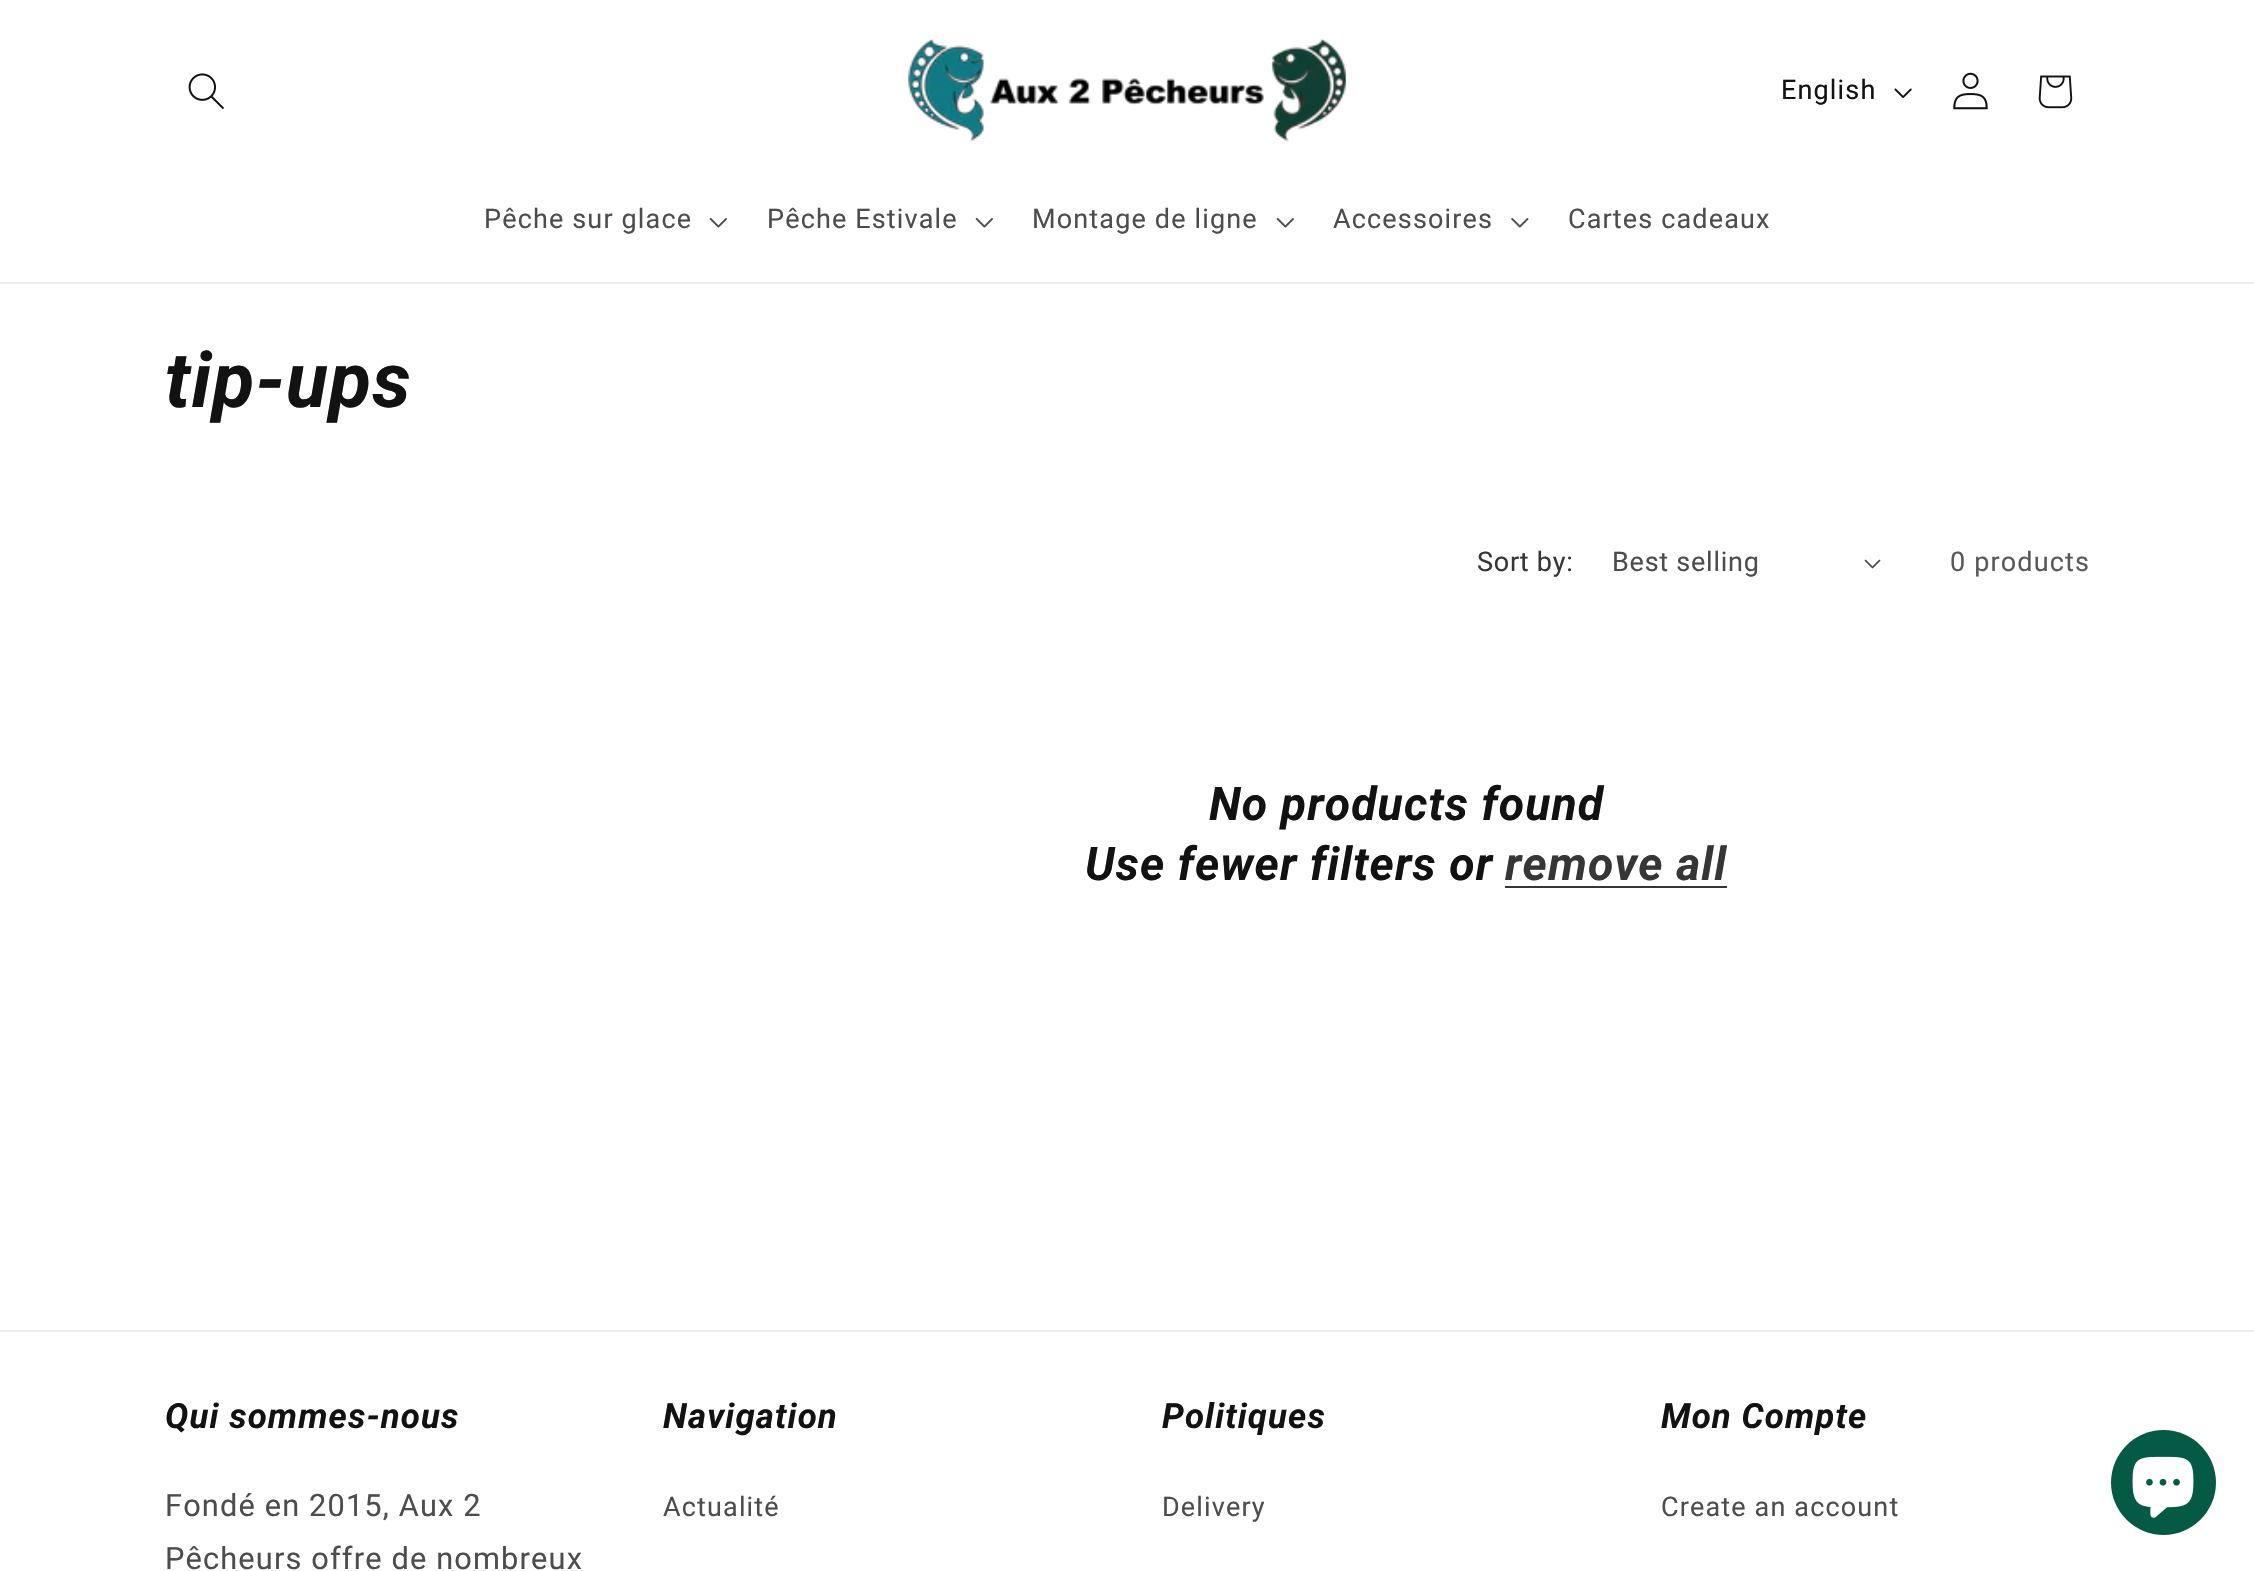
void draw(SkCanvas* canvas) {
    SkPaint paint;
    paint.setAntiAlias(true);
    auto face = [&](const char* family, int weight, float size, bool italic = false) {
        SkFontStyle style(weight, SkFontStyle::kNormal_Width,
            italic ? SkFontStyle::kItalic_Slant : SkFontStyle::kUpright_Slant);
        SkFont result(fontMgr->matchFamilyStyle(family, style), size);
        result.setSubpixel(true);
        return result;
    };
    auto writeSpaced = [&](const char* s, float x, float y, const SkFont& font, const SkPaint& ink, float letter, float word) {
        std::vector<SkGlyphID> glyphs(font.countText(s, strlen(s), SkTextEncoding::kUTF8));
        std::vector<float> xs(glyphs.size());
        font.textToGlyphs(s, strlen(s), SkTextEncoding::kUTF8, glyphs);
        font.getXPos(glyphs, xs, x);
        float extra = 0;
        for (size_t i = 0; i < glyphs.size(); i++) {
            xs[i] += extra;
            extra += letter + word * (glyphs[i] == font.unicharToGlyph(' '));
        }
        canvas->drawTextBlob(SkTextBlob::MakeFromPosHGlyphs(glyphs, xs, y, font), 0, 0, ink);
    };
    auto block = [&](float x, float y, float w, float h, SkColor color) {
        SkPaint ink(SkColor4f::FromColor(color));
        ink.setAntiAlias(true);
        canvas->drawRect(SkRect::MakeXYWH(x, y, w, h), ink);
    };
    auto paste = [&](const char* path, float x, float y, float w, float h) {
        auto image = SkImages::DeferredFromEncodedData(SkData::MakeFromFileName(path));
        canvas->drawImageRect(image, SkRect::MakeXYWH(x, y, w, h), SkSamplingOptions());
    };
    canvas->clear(SK_ColorWHITE);
    block(0, 282, 2254, 2, SkColorSetRGB(236, 236, 236));
    paste("pic1.png", 188, 73, 36, 36);
    paste("pic2.png", 908, 38, 438, 104);
    auto kFont1 = face("Roboto", 400, 27);
    paint.setColor(SkColorSetRGB(18, 18, 18));
    writeSpaced("English", 1781, 99, kFont1, paint, 1.15f, 0);
    paste("pic3.png", 1894, 88, 18, 10);
    paste("pic4.png", 1953, 72, 35, 38);
    paste("pic5.png", 2038, 75, 35, 34);
    paint.setColor(SkColorSetRGB(77, 77, 77));
    writeSpaced("Pêche sur glace", 484, 228, kFont1, paint, 1.15f, 0);
    paste("pic6.png", 709, 218, 18, 10);
    writeSpaced("Pêche Estivale", 767, 228, kFont1, paint, 1.15f, 0);
    paste("pic6.png", 975, 218, 18, 10);
    writeSpaced("Montage de ligne", 1032, 228, kFont1, paint, 1.15f, 0);
    paste("pic6.png", 1276, 218, 18, 10);
    writeSpaced("Accessoires", 1333, 228, kFont1, paint, 1.15f, 0);
    paste("pic7.png", 1511, 218, 18, 10);
    writeSpaced("Cartes cadeaux", 1568, 228, kFont1, paint, 1.15f, 0);
    auto kFont2 = face("Roboto", 700, 77, true);
    paint.setColor(SkColorSetRGB(18, 18, 18));
    writeSpaced("tip-ups", 165, 407, kFont2, paint, 1.15f, 0);
    paint.setColor(SkColorSetRGB(54, 54, 54));
    writeSpaced("Sort by:", 1477, 571, kFont1, paint, 0.75f, 0);
    paint.setColor(SkColorSetRGB(77, 77, 77));
    writeSpaced("Best selling", 1612, 571, kFont1, paint, 0.75f, 0);
    paste("pic8.png", 1864, 559, 17, 10);
    paint.setColor(SkColorSetRGB(89, 89, 89));
    writeSpaced("0 products", 1950, 571, kFont1, paint, 1.15f, 0);
    auto kFont3 = face("Roboto", 700, 46.25f, true);
    paint.setColor(SkColorSetRGB(18, 18, 18));
    writeSpaced("No products found", 1209, 820, kFont3, paint, 1.15f, 0);
    writeSpaced("Use fewer filters or", 1085, 880, kFont3, paint, 1.15f, 0);
    paint.setColor(SkColorSetRGB(54, 54, 54));
    writeSpaced("remove all", 1505, 880, kFont3, paint, 1.15f, 0);
    block(1505, 886, 222, 2, SkColorSetRGB(54, 54, 54));
    block(0, 1330, 2254, 2, SkColorSetRGB(236, 236, 236));
    auto kFont4 = face("Roboto", 700, 34.75f, true);
    paint.setColor(SkColorSetRGB(18, 18, 18));
    writeSpaced("Qui sommes-nous", 165, 1428, kFont4, paint, 1.15f, 0);
    auto kFont5 = face("Roboto", 400, 30.75f);
    paint.setColor(SkColorSetRGB(77, 77, 77));
    writeSpaced("Fondé en 2015, Aux 2", 165, 1516, kFont5, paint, 1.15f, 0);
    writeSpaced("Pêcheurs offre de nombreux", 165, 1569, kFont5, paint, 1.15f, 0);
    paint.setColor(SkColorSetRGB(18, 18, 18));
    writeSpaced("Navigation", 663, 1428, kFont4, paint, 1.15f, 0);
    paint.setColor(SkColorSetRGB(77, 77, 77));
    writeSpaced("Actualité", 663, 1516, kFont1, paint, 1.15f, 0);
    paint.setColor(SkColorSetRGB(18, 18, 18));
    writeSpaced("Politiques", 1162, 1428, kFont4, paint, 1.15f, 0);
    paint.setColor(SkColorSetRGB(77, 77, 77));
    writeSpaced("Delivery", 1162, 1516, kFont1, paint, 1.15f, 0);
    paint.setColor(SkColorSetRGB(18, 18, 18));
    writeSpaced("Mon Compte", 1661, 1428, kFont4, paint, 1.15f, 0);
    paint.setColor(SkColorSetRGB(77, 77, 77));
    writeSpaced("Create an account", 1661, 1516, kFont1, paint, 1.15f, 0);
    paint.setColor(SkColorSetRGB(5, 90, 69));
    canvas->drawCircle(2163.5f, 1482.5f, 52.5f, paint);
    paste("pic9.png", 2132, 1456, 62, 62);
}
